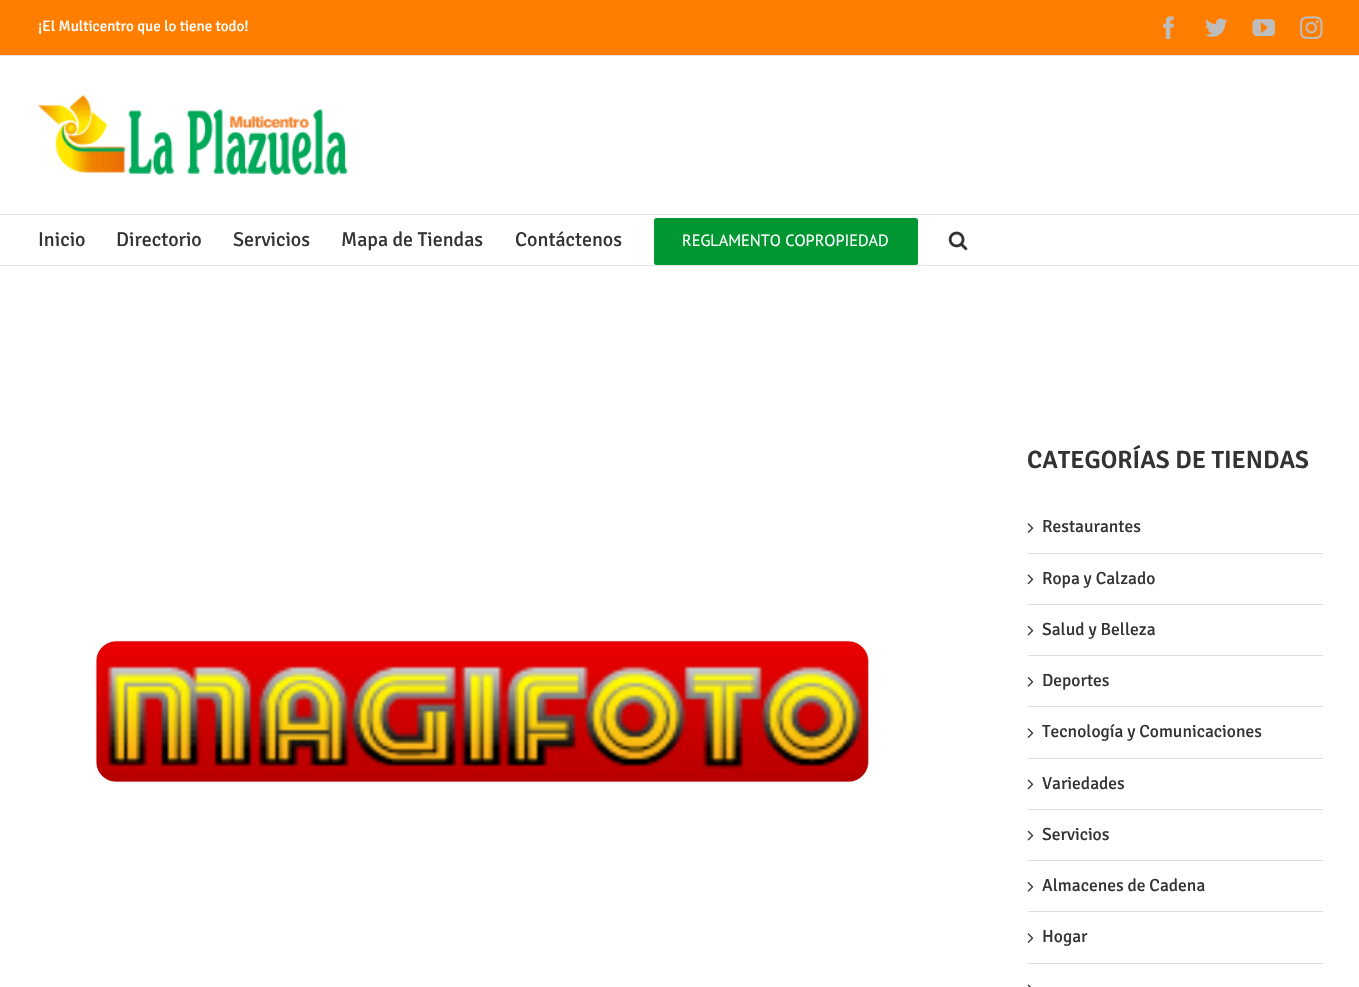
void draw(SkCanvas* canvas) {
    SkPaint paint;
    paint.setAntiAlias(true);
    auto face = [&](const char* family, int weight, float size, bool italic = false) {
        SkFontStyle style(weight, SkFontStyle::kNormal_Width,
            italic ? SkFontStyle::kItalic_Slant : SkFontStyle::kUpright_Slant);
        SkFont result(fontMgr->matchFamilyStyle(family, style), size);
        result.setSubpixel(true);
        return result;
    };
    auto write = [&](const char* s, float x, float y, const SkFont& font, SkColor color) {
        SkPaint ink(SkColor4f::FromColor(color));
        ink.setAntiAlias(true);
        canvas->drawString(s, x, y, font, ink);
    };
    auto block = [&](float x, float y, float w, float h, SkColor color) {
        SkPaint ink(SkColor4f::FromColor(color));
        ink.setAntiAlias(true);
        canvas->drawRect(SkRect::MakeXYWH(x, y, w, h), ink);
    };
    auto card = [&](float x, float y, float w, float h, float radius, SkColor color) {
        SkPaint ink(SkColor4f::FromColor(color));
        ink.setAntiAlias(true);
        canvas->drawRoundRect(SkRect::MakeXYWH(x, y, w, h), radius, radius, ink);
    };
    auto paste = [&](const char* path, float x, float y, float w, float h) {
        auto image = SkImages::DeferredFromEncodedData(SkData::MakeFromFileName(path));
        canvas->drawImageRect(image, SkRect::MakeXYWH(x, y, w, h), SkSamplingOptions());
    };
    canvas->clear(SK_ColorWHITE);
    block(0, 0, 1359, 55, SkColorSetRGB(255, 126, 0));
    block(0, 55, 1359, 1, SkColorSetRGB(229, 229, 229));
    auto kFont1 = face("Signika", 400, 15);
    write("¡El Multicentro que lo tiene todo!", 38, 31, kFont1, SK_ColorWHITE);
    paste("pic1.png", 1163, 16, 11, 23);
    paste("pic2.png", 1205, 18, 23, 19);
    paste("pic3.png", 1252, 19, 23, 18);
    paste("pic4.png", 1300, 16, 23, 23);
    block(0, 214, 1359, 1, SkColorSetRGB(229, 229, 229));
    paste("pic5.png", 37, 95, 311, 80);
    block(0, 265, 1359, 1, SkColorSetRGB(229, 229, 229));
    auto kFont2 = face("Signika", 400, 20);
    write("Inicio", 38, 246, kFont2, SkColorSetRGB(51, 51, 51));
    write("Directorio", 116, 246, kFont2, SkColorSetRGB(51, 51, 51));
    write("Servicios", 233, 246, kFont2, SkColorSetRGB(51, 51, 51));
    write("Mapa de Tiendas", 341, 246, kFont2, SkColorSetRGB(51, 51, 51));
    write("Contáctenos", 515, 246, kFont2, SkColorSetRGB(51, 51, 51));
    card(654, 218, 264, 47, 2.5f, SkColorSetRGB(0, 151, 51));
    auto kFont3 = face("PT Sans", 400, 16.25f);
    write("REGLAMENTO COPROPIEDAD", 682, 246, kFont3, SK_ColorWHITE);
    paste("pic6.png", 948, 231, 20, 20);
    paste("pic7.png", 95, 640, 775, 143);
    auto kFont4 = face("Signika", 600, 25);
    write("CATEGORÍAS DE TIENDAS", 1027, 468, kFont4, SkColorSetRGB(51, 51, 51));
    block(1028, 553, 295, 1, SkColorSetRGB(224, 222, 222));
    paste("pic8.png", 1027, 523, 7, 10);
    auto kFont5 = face("Signika", 400, 17.5f);
    write("Restaurantes", 1042, 532, kFont5, SkColorSetRGB(51, 51, 51));
    block(1028, 604, 295, 1, SkColorSetRGB(224, 222, 222));
    paste("pic9.png", 1027, 574, 7, 11);
    write("Ropa y Calzado", 1042, 584, kFont5, SkColorSetRGB(51, 51, 51));
    block(1028, 655, 295, 1, SkColorSetRGB(224, 222, 222));
    paste("pic10.png", 1027, 625, 7, 11);
    write("Salud y Belleza", 1042, 635, kFont5, SkColorSetRGB(51, 51, 51));
    block(1028, 706, 295, 1, SkColorSetRGB(224, 222, 222));
    paste("pic11.png", 1027, 677, 7, 10);
    write("Deportes", 1042, 686, kFont5, SkColorSetRGB(51, 51, 51));
    block(1028, 758, 295, 1, SkColorSetRGB(224, 222, 222));
    paste("pic8.png", 1027, 728, 7, 10);
    write("Tecnología y Comunicaciones", 1042, 737, kFont5, SkColorSetRGB(51, 51, 51));
    block(1028, 809, 295, 1, SkColorSetRGB(224, 222, 222));
    paste("pic9.png", 1027, 779, 7, 11);
    write("Variedades", 1042, 789, kFont5, SkColorSetRGB(51, 51, 51));
    block(1028, 860, 295, 1, SkColorSetRGB(224, 222, 222));
    paste("pic10.png", 1027, 830, 7, 11);
    write("Servicios", 1042, 840, kFont5, SkColorSetRGB(51, 51, 51));
    block(1028, 911, 295, 1, SkColorSetRGB(224, 222, 222));
    paste("pic11.png", 1027, 882, 7, 10);
    write("Almacenes de Cadena", 1042, 891, kFont5, SkColorSetRGB(51, 51, 51));
    block(1028, 963, 295, 1, SkColorSetRGB(224, 222, 222));
    paste("pic8.png", 1027, 933, 7, 10);
    write("Hogar", 1042, 942, kFont5, SkColorSetRGB(51, 51, 51));
    paste("pic12.png", 1027, 984, 4, 3);
}
